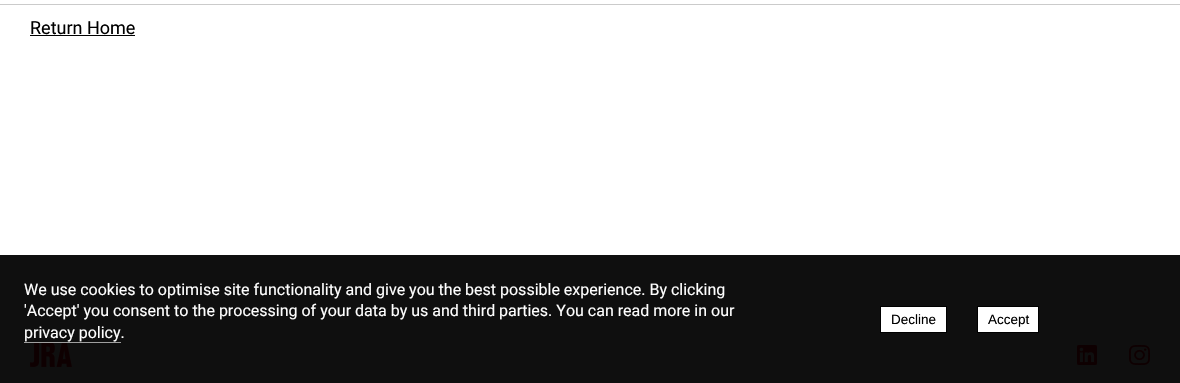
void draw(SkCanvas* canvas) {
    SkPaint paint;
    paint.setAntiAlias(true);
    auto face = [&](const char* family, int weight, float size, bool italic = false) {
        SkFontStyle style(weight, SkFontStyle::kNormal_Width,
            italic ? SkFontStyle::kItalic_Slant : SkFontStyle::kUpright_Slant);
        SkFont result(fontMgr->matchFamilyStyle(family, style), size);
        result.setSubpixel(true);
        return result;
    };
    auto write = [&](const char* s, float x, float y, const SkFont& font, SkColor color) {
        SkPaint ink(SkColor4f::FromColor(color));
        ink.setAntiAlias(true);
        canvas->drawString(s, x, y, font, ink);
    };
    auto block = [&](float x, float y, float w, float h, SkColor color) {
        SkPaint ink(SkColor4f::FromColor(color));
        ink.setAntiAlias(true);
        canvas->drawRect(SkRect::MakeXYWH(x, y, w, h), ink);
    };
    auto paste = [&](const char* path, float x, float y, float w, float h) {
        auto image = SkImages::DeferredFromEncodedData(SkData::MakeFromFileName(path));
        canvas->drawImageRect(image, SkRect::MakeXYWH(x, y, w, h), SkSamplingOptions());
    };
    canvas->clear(SK_ColorWHITE);
    block(0, 255, 1180, 128, SkColorSetRGB(15, 15, 15));
    block(0, 4, 1180, 1, SkColorSetRGB(203, 203, 203));
    auto kFont1 = face("Roboto", 400, 18);
    write("Return Home", 30, 34, kFont1, SK_ColorBLACK);
    block(30, 35, 105, 1, SK_ColorBLACK);
    auto kFont2 = face("Roboto", 400, 16);
    write("We use cookies to optimise site functionality and give you the best possible experience. By clicking", 24, 295, kFont2, SK_ColorWHITE);
    write("'Accept' you consent to the processing of your data by us and third parties. You can read more in our", 24, 316, kFont2, SK_ColorWHITE);
    write("privacy policy.", 24, 338, kFont2, SK_ColorWHITE);
    block(24, 342, 97, 1, SkColorSetRGB(159, 159, 159));
    paint.setColor(SK_ColorWHITE);
    canvas->drawRect(SkRect::MakeXYWH(880.5f, 306.5f, 66, 26), paint);
    paint.setStyle(SkPaint::kStroke_Style);
    paint.setStrokeWidth(1);
    paint.setColor(SK_ColorBLACK);
    canvas->drawRect(SkRect::MakeXYWH(880.5f, 306.5f, 66, 26), paint);
    auto kFont3 = face("Liberation Sans", 400, 13.5f);
    write("Decline", 891, 324, kFont3, SK_ColorBLACK);
    paint.setStyle(SkPaint::kFill_Style);
    paint.setColor(SK_ColorWHITE);
    canvas->drawRect(SkRect::MakeXYWH(977.5f, 306.5f, 61, 26), paint);
    paint.setStyle(SkPaint::kStroke_Style);
    paint.setColor(SK_ColorBLACK);
    canvas->drawRect(SkRect::MakeXYWH(977.5f, 306.5f, 61, 26), paint);
    write("Accept", 988, 324, kFont3, SK_ColorBLACK);
    paste("pic1.png", 30, 343, 42, 24);
    paste("pic2.png", 1077, 345, 20, 20);
    paste("pic3.png", 1129, 345, 21, 20);
}
